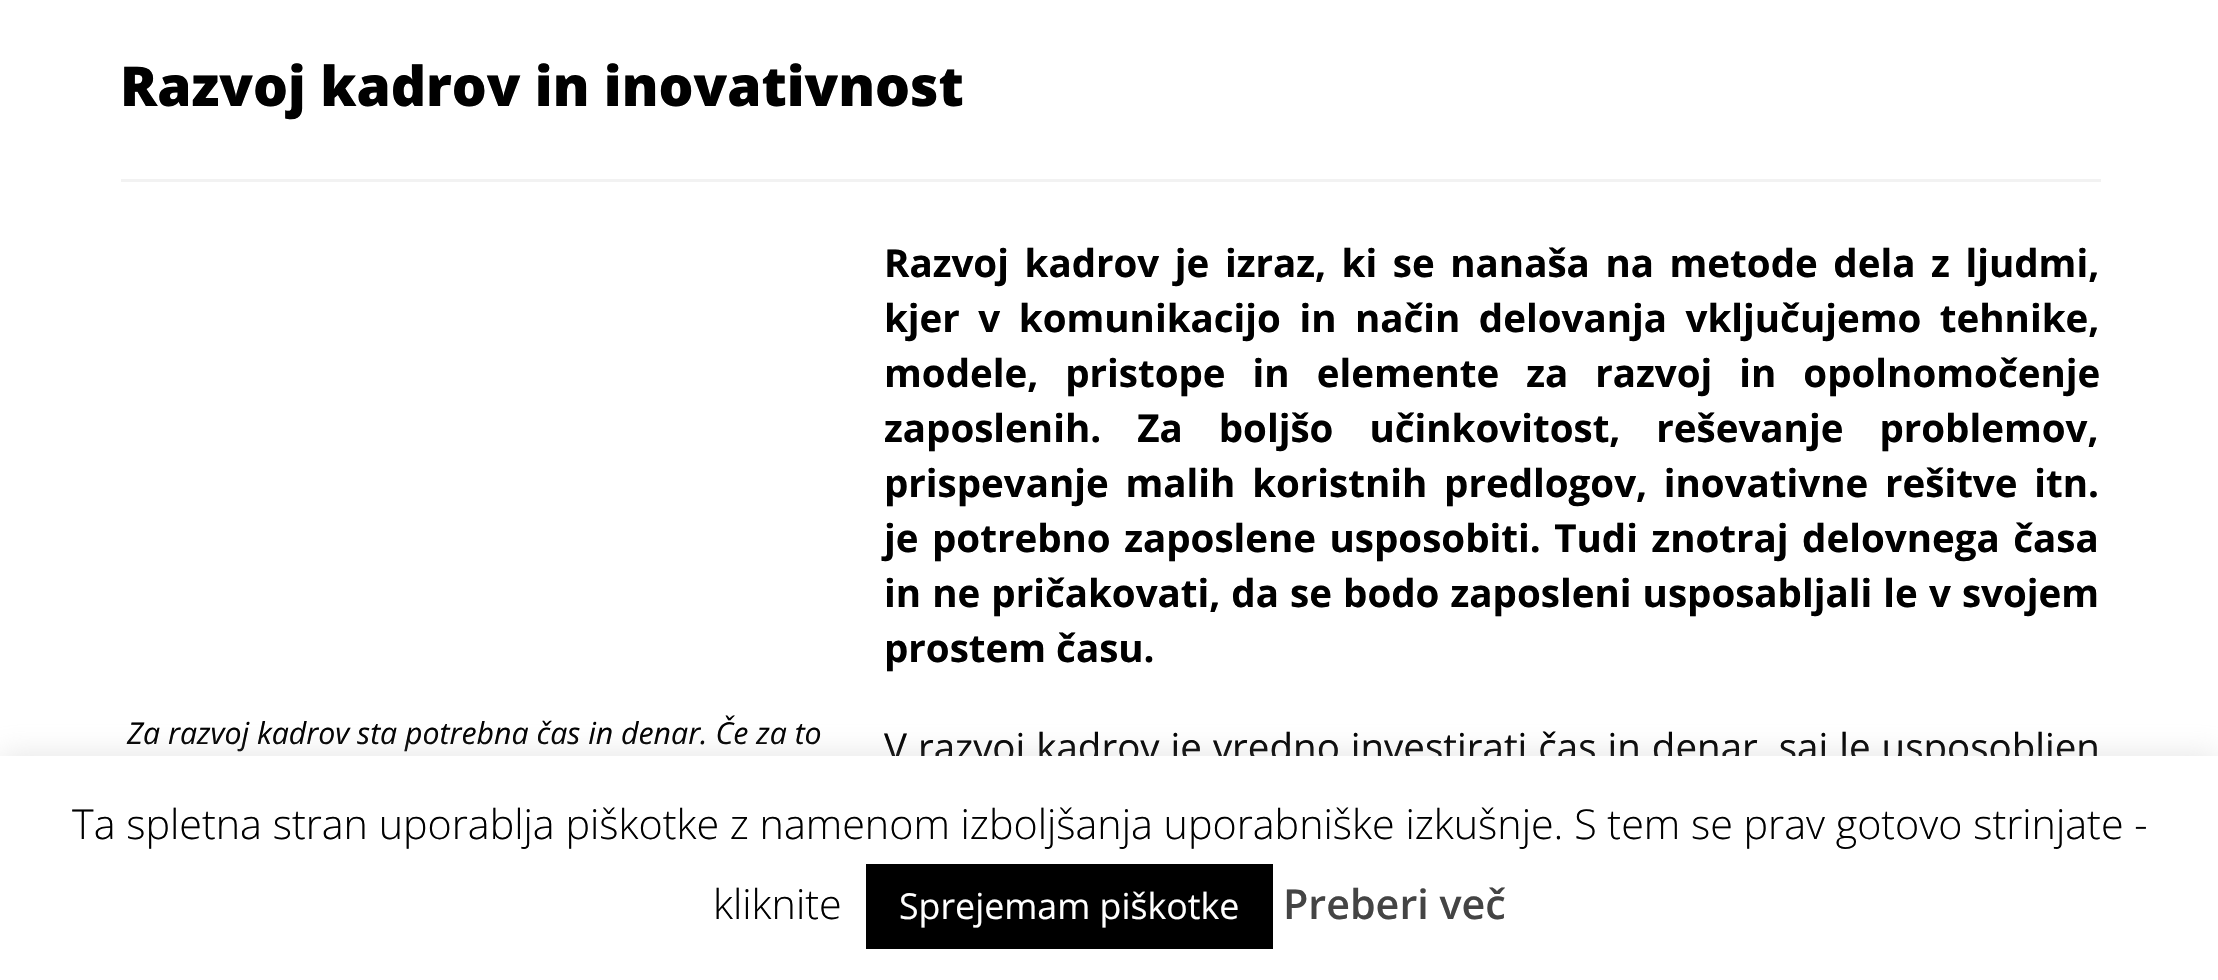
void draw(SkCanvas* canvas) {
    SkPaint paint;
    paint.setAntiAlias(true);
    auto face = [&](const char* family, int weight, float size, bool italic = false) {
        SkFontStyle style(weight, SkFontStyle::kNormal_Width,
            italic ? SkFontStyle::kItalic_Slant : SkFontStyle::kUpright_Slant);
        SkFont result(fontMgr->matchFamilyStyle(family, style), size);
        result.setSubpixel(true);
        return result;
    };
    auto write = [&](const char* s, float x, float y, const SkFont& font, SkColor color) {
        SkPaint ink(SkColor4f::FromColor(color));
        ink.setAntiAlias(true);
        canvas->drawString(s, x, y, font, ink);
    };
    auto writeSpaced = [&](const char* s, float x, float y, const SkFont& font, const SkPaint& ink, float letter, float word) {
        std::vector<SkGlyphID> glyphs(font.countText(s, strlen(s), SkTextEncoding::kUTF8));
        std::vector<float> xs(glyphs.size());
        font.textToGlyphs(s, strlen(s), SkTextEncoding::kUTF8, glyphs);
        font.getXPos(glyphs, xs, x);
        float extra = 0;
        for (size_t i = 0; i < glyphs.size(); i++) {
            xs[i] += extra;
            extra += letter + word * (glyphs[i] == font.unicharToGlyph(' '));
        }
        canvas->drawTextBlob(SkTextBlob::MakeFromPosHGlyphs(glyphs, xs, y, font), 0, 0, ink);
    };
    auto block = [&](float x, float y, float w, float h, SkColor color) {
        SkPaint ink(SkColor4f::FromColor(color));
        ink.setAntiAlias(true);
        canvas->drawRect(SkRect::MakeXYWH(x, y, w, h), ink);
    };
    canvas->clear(SK_ColorWHITE);
    block(121, 179, 1980, 3, SkColorSetRGB(242, 242, 242));
    auto kFont1 = face("Open Sans", 800, 55);
    write("Razvoj kadrov in inovativnost", 120, 106, kFont1, SK_ColorBLACK);
    auto kFont2 = face("Open Sans", 700, 38.5f);
    paint.setColor(SK_ColorBLACK);
    writeSpaced("Razvoj kadrov je izraz, ki se nanaša na metode dela z ljudmi,", 884, 277, kFont2, paint, 0, 5.6f);
    writeSpaced("kjer v komunikacijo in način delovanja vključujemo tehnike,", 884, 332, kFont2, paint, 0, 8.5f);
    writeSpaced("modele, pristope in elemente za razvoj in opolnomočenje", 884, 387, kFont2, paint, 0, 17);
    writeSpaced("zaposlenih. Za boljšo učinkovitost, reševanje problemov,", 884, 442, kFont2, paint, 0, 26);
    writeSpaced("prispevanje malih koristnih predlogov, inovativne rešitve itn.", 884, 497, kFont2, paint, 0, 6.75f);
    writeSpaced("je potrebno zaposlene usposobiti. Tudi znotraj delovnega časa", 884, 552, kFont2, paint, 0, 3.5f);
    writeSpaced("in ne pričakovati, da se bodo zaposleni usposabljali le v svojem", 884, 607, kFont2, paint, 0, 1.1f);
    write("prostem času.", 884, 662, kFont2, SK_ColorBLACK);
    auto kFont3 = face("Open Sans", 400, 30.25f, true);
    write("Za razvoj kadrov sta potrebna čas in denar. Če za to", 127, 744, kFont3, SK_ColorBLACK);
    auto kFont4 = face("Open Sans", 400, 38.5f);
    writeSpaced("V razvoj kadrov je vredno investirati čas in denar, saj le usposobljen", 884, 761, kFont4, paint, 0, 1);
    paint.setColor(SkColorSetARGB(77, 172, 171, 171));
    paint.setMaskFilter(SkMaskFilter::MakeBlur(kNormal_SkBlurStyle, 14));
    canvas->drawRect(SkRect::MakeXYWH(0, 754, 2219, 225), paint);
    paint.setMaskFilter(nullptr);
    block(0, 756, 2218, 224, SK_ColorWHITE);
    auto kFont5 = face("Open Sans", 300, 41.25f);
    write("Ta spletna stran uporablja piškotke z namenom izboljšanja uporabniške izkušnje. S tem se prav gotovo strinjate -", 72, 839, kFont5, SK_ColorBLACK);
    write("kliknite", 713, 919, kFont5, SK_ColorBLACK);
    block(866, 864, 407, 85, SK_ColorBLACK);
    auto kFont6 = face("Open Sans", 400, 35.75f);
    write("Sprejemam piškotke", 899, 919, kFont6, SK_ColorWHITE);
    auto kFont7 = face("Open Sans", 600, 41.25f);
    write("Preberi več", 1283, 919, kFont7, SkColorSetRGB(68, 68, 68));
}
